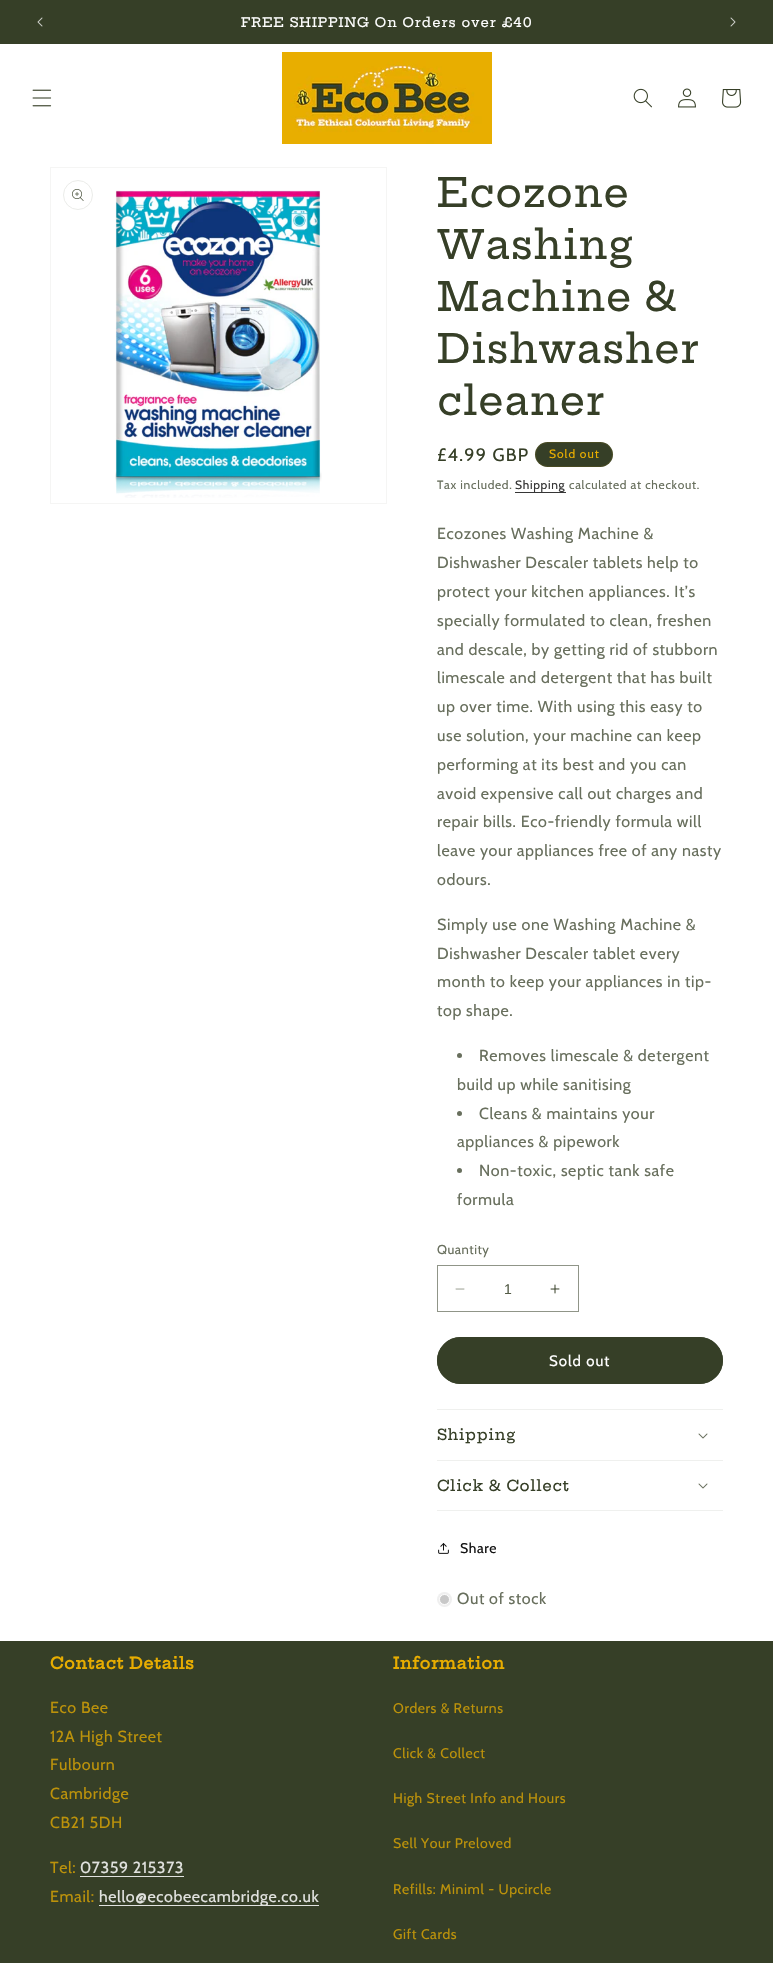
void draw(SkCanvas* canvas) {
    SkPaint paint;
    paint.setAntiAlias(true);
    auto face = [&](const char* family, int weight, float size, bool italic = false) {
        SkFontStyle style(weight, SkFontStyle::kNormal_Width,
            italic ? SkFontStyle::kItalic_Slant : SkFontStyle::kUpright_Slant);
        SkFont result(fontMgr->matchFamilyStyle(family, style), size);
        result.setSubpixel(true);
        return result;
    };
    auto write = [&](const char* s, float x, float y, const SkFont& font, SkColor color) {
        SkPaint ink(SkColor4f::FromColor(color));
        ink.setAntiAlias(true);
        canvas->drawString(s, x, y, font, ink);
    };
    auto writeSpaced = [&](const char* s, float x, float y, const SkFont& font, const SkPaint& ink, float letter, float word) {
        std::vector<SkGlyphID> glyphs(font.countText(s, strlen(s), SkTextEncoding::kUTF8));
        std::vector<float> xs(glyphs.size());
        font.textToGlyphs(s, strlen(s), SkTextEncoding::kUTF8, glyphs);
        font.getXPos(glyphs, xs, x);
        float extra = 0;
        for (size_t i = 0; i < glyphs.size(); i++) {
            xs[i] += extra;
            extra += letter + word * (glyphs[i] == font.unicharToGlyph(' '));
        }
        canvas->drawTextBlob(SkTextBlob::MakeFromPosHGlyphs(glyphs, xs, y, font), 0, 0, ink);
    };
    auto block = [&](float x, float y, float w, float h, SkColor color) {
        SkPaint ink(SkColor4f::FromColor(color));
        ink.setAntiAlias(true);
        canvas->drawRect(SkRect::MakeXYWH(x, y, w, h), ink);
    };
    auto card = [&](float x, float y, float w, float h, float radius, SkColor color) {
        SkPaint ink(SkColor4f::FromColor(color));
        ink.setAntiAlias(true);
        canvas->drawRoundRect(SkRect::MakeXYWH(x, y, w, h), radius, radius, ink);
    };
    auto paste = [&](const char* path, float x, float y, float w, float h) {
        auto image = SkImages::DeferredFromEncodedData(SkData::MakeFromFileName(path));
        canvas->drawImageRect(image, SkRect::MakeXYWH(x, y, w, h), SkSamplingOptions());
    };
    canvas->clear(SK_ColorWHITE);
    block(0, 0, 773, 44, SkColorSetRGB(54, 63, 39));
    paste("pic1.png", 37, 17, 6, 10);
    auto kFont1 = face("Hepta Slab", 500, 13);
    paint.setColor(SK_ColorWHITE);
    writeSpaced("FREE SHIPPING On Orders over £40", 241, 27, kFont1, paint, 1, 0);
    paste("pic2.png", 730, 17, 6, 10);
    paste("pic3.png", 32, 89, 20, 18);
    paste("pic4.png", 282, 52, 210, 92);
    paste("pic5.png", 633, 88, 19, 20);
    paste("pic6.png", 678, 88, 18, 20);
    paste("pic7.png", 722, 89, 20, 19);
    paint.setStyle(SkPaint::kStroke_Style);
    paint.setStrokeWidth(1);
    paint.setColor(SkColorSetRGB(245, 245, 244));
    canvas->drawRect(SkRect::MakeXYWH(50.5f, 167.5f, 336, 336), paint);
    paint.setColor(SkColorSetRGB(235, 236, 233));
    canvas->drawCircle(78, 195, 14.5f, paint);
    paste("pic8.png", 72, 189, 12, 12);
    paste("pic9.png", 115, 190, 207, 308);
    auto kFont2 = face("Hepta Slab", 500, 40);
    paint.setStyle(SkPaint::kFill_Style);
    paint.setColor(SkColorSetRGB(54, 63, 39));
    writeSpaced("Ecozone", 437, 207, kFont2, paint, 0.6f, 0);
    writeSpaced("Washing", 437, 259, kFont2, paint, 0.6f, 0);
    writeSpaced("Machine &", 437, 311, kFont2, paint, 0.6f, 0);
    writeSpaced("Dishwasher", 437, 363, kFont2, paint, 0.6f, 0);
    writeSpaced("cleaner", 437, 415, kFont2, paint, 0.6f, 0);
    auto kFont3 = face("Cabin", 400, 18);
    writeSpaced("£4.99 GBP", 437, 461, kFont3, paint, 1.25f, 0);
    card(535, 442, 78, 25, 12.5f, SkColorSetRGB(54, 63, 39));
    paint.setStyle(SkPaint::kStroke_Style);
    paint.setColor(SkColorSetARGB(26, 232, 173, 0));
    canvas->drawRoundRect(SkRect::MakeXYWH(535.5f, 442.5f, 77, 24), 12, 12, paint);
    auto kFont4 = face("Cabin", 400, 12);
    paint.setStyle(SkPaint::kFill_Style);
    paint.setColor(SkColorSetRGB(232, 173, 0));
    writeSpaced("Sold out", 549, 458, kFont4, paint, 1, 0);
    paint.setColor(SkColorSetRGB(104, 111, 93));
    writeSpaced("Tax included.", 437, 489, kFont4, paint, 0.7f, 0);
    paint.setColor(SkColorSetRGB(54, 54, 54));
    writeSpaced("Shipping", 515, 489, kFont4, paint, 0.7f, 0);
    block(515, 492, 51, 1, SkColorSetRGB(54, 54, 54));
    paint.setColor(SkColorSetRGB(104, 111, 93));
    writeSpaced("calculated at checkout.", 569, 489, kFont4, paint, 0.7f, 0);
    auto kFont5 = face("Cabin", 400, 16);
    writeSpaced("Ecozones Washing Machine &", 437, 539, kFont5, paint, 0.6f, 0);
    writeSpaced("Dishwasher Descaler tablets help to", 437, 568, kFont5, paint, 0.6f, 0);
    writeSpaced("protect your kitchen appliances. It’s", 437, 597, kFont5, paint, 0.6f, 0);
    writeSpaced("specially formulated to clean, freshen", 437, 626, kFont5, paint, 0.6f, 0);
    writeSpaced("and descale, by getting rid of stubborn", 437, 655, kFont5, paint, 0.6f, 0);
    writeSpaced("limescale and detergent that has built", 437, 683, kFont5, paint, 0.6f, 0);
    writeSpaced("up over time. With using this easy to", 437, 712, kFont5, paint, 0.6f, 0);
    writeSpaced("use solution, your machine can keep", 437, 741, kFont5, paint, 0.6f, 0);
    writeSpaced("performing at its best and you can", 437, 770, kFont5, paint, 0.6f, 0);
    writeSpaced("avoid expensive call out charges and", 437, 799, kFont5, paint, 0.6f, 0);
    writeSpaced("repair bills. Eco-friendly formula will", 437, 827, kFont5, paint, 0.6f, 0);
    writeSpaced("leave your appliances free of any nasty", 437, 856, kFont5, paint, 0.6f, 0);
    writeSpaced("odours.", 437, 885, kFont5, paint, 0.6f, 0);
    writeSpaced("Simply use one Washing Machine &", 437, 930, kFont5, paint, 0.6f, 0);
    writeSpaced("Dishwasher Descaler tablet every", 437, 959, kFont5, paint, 0.6f, 0);
    writeSpaced("month to keep your appliances in tip-", 437, 987, kFont5, paint, 0.6f, 0);
    writeSpaced("top shape.", 437, 1016, kFont5, paint, 0.6f, 0);
    canvas->drawCircle(459.5f, 1055.5f, 2.5f, paint);
    writeSpaced("Removes limescale & detergent", 479, 1061, kFont5, paint, 0.6f, 0);
    writeSpaced("build up while sanitising", 457, 1090, kFont5, paint, 0.6f, 0);
    canvas->drawCircle(459.5f, 1113.5f, 2.5f, paint);
    writeSpaced("Cleans & maintains your", 479, 1119, kFont5, paint, 0.6f, 0);
    writeSpaced("appliances & pipework", 457, 1147, kFont5, paint, 0.6f, 0);
    canvas->drawCircle(459.5f, 1170.5f, 2.5f, paint);
    writeSpaced("Non-toxic, septic tank safe", 479, 1176, kFont5, paint, 0.6f, 0);
    writeSpaced("formula", 457, 1205, kFont5, paint, 0.6f, 0);
    auto kFont6 = face("Cabin", 400, 13);
    writeSpaced("Quantity", 437, 1254, kFont6, paint, 0.5f, 0);
    paste("pic10.png", 455, 1288, 10, 2);
    paste("pic11.png", 550, 1284, 10, 10);
    paint.setStyle(SkPaint::kStroke_Style);
    paint.setColor(SkColorSetRGB(144, 149, 136));
    canvas->drawRect(SkRect::MakeXYWH(437.5f, 1265.5f, 141, 46), paint);
    auto kFont7 = face("Liberation Sans", 400, 14);
    write("1", 504, 1294, kFont7, SkColorSetRGB(84, 92, 71));
    card(437, 1337, 286, 47, 23.5f, SkColorSetRGB(54, 63, 39));
    paint.setColor(SkColorSetRGB(54, 63, 39));
    canvas->drawRoundRect(SkRect::MakeXYWH(437.5f, 1337.5f, 285, 46), 23, 23, paint);
    auto kFont8 = face("Cabin", 400, 15);
    paint.setStyle(SkPaint::kFill_Style);
    paint.setColor(SK_ColorWHITE);
    writeSpaced("Sold out", 549, 1366, kFont8, paint, 1, 0);
    block(437, 1409, 286, 1, SkColorSetRGB(239, 240, 238));
    block(437, 1460, 286, 1, SkColorSetRGB(239, 240, 238));
    auto kFont9 = face("Hepta Slab", 500, 15);
    paint.setColor(SkColorSetRGB(54, 63, 39));
    writeSpaced("Shipping", 437, 1440, kFont9, paint, 0.6f, 0);
    paste("pic12.png", 698, 1433, 10, 6);
    block(437, 1510, 286, 1, SkColorSetRGB(239, 240, 238));
    writeSpaced("Click & Collect", 437, 1491, kFont9, paint, 0.6f, 0);
    paste("pic12.png", 698, 1483, 10, 6);
    paste("pic13.png", 438, 1543, 11, 11);
    auto kFont10 = face("Cabin", 400, 14);
    paint.setColor(SkColorSetRGB(18, 18, 18));
    writeSpaced("Share", 460, 1553, kFont10, paint, 0.6f, 0);
    paint.setColor(SkColorSetRGB(239, 239, 239));
    canvas->drawCircle(444.5f, 1599.5f, 7.5f, paint);
    paint.setColor(SkColorSetRGB(200, 200, 200));
    canvas->drawCircle(444.5f, 1599.5f, 5, paint);
    paint.setStyle(SkPaint::kStroke_Style);
    paint.setColor(SK_ColorWHITE);
    canvas->drawCircle(444.5f, 1599.5f, 5, paint);
    paint.setStyle(SkPaint::kFill_Style);
    paint.setColor(SkColorSetRGB(104, 111, 93));
    writeSpaced("Out of stock", 457, 1604, kFont5, paint, 0.6f, 0);
    block(0, 1641, 773, 322, SkColorSetRGB(54, 63, 39));
    auto kFont11 = face("Hepta Slab", 700, 16);
    paint.setColor(SkColorSetRGB(232, 173, 0));
    writeSpaced("Contact Details", 50, 1669, kFont11, paint, 0.6f, 0);
    paint.setColor(SkColorSetRGB(188, 146, 10));
    writeSpaced("Eco Bee", 50, 1713, kFont5, paint, 0.6f, 0);
    writeSpaced("12A High Street", 50, 1742, kFont5, paint, 0.6f, 0);
    writeSpaced("Fulbourn", 50, 1770, kFont5, paint, 0.6f, 0);
    writeSpaced("Cambridge", 50, 1799, kFont5, paint, 0.6f, 0);
    writeSpaced("CB21 5DH", 50, 1828, kFont5, paint, 0.6f, 0);
    writeSpaced("Tel:", 50, 1873, kFont5, paint, 0.6f, 0);
    paint.setColor(SkColorSetRGB(225, 226, 223));
    writeSpaced("07359 215373", 80, 1873, kFont5, paint, 0.6f, 0);
    block(80, 1876, 104, 1, SkColorSetRGB(225, 226, 223));
    paint.setColor(SkColorSetRGB(188, 146, 10));
    writeSpaced("Email:", 50, 1902, kFont5, paint, 0.6f, 0);
    block(99, 1905, 220, 1, SkColorSetRGB(225, 226, 223));
    paint.setColor(SkColorSetRGB(225, 226, 223));
    writeSpaced("hello@ecobeecambridge.co.uk", 99, 1902, kFont5, paint, 0.6f, 0);
    paint.setColor(SkColorSetRGB(232, 173, 0));
    writeSpaced("Information", 393, 1669, kFont11, paint, 0.6f, 0);
    paint.setColor(SkColorSetRGB(188, 146, 10));
    writeSpaced("Orders & Returns", 393, 1713, kFont10, paint, 0.6f, 0);
    writeSpaced("Click & Collect", 393, 1758, kFont10, paint, 0.6f, 0);
    writeSpaced("High Street Info and Hours", 393, 1803, kFont10, paint, 0.6f, 0);
    writeSpaced("Sell Your Preloved", 393, 1848, kFont10, paint, 0.6f, 0);
    writeSpaced("Refills: Miniml - Upcircle", 393, 1894, kFont10, paint, 0.6f, 0);
    writeSpaced("Gift Cards", 393, 1939, kFont10, paint, 0.6f, 0);
}
